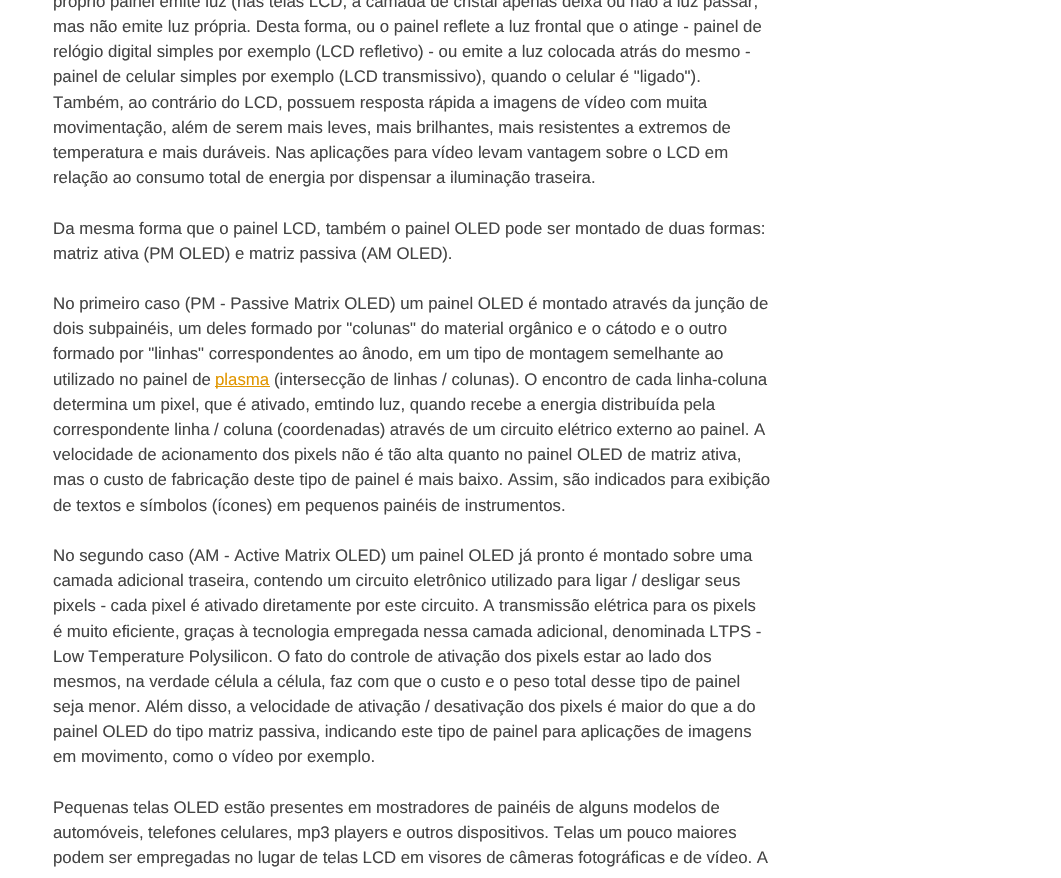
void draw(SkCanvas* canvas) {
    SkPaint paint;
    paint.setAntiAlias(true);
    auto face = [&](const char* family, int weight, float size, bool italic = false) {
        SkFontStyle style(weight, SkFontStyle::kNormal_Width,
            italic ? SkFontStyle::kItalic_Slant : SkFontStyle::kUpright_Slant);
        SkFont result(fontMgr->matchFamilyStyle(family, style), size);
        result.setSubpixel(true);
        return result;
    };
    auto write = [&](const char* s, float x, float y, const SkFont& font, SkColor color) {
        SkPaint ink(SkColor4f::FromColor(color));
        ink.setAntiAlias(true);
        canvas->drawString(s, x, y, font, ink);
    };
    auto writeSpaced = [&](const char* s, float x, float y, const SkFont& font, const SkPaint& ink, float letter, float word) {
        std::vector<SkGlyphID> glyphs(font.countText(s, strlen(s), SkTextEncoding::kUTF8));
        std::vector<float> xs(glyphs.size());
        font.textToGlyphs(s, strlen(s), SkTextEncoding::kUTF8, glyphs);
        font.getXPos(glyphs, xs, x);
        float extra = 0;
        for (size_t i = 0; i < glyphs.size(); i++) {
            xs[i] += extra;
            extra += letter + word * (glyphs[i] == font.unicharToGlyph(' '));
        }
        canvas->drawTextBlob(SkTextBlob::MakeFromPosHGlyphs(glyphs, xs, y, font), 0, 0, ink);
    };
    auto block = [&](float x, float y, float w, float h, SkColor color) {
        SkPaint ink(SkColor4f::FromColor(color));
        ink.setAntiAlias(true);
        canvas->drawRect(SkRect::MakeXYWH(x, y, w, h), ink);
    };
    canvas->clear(SK_ColorWHITE);
    auto kFont1 = face("Liberation Sans", 400, 16.8f);
    write("próprio painel emite luz (nas telas LCD, a camada de cristal apenas deixa ou não a luz passar,", 53, 7, kFont1, SkColorSetRGB(68, 68, 68));
    write("mas não emite luz própria. Desta forma, ou o painel reflete a luz frontal que o atinge - painel de", 53, 32, kFont1, SkColorSetRGB(68, 68, 68));
    write("relógio digital simples por exemplo (LCD refletivo) - ou emite a luz colocada atrás do mesmo -", 53, 57, kFont1, SkColorSetRGB(68, 68, 68));
    write("painel de celular simples por exemplo (LCD transmissivo), quando o celular é \"ligado\").", 53, 82, kFont1, SkColorSetRGB(68, 68, 68));
    paint.setColor(SkColorSetRGB(68, 68, 68));
    writeSpaced("Também, ao contrário do LCD, possuem resposta rápida a imagens de vídeo com muita", 53, 108, kFont1, paint, 0, -0.25f);
    write("movimentação, além de serem mais leves, mais brilhantes, mais resistentes a extremos de", 53, 133, kFont1, SkColorSetRGB(68, 68, 68));
    write("temperatura e mais duráveis. Nas aplicações para vídeo levam vantagem sobre o LCD em", 53, 158, kFont1, SkColorSetRGB(68, 68, 68));
    write("relação ao consumo total de energia por dispensar a iluminação traseira.", 53, 183, kFont1, SkColorSetRGB(68, 68, 68));
    write("Da mesma forma que o painel LCD, também o painel OLED pode ser montado de duas formas:", 53, 234, kFont1, SkColorSetRGB(68, 68, 68));
    write("matriz ativa (PM OLED) e matriz passiva (AM OLED).", 53, 259, kFont1, SkColorSetRGB(68, 68, 68));
    write("No primeiro caso (PM - Passive Matrix OLED) um painel OLED é montado através da junção de", 53, 309, kFont1, SkColorSetRGB(68, 68, 68));
    write("dois subpainéis, um deles formado por \"colunas\" do material orgânico e o cátodo e o outro", 53, 334, kFont1, SkColorSetRGB(68, 68, 68));
    write("formado por \"linhas\" correspondentes ao ânodo, em um tipo de montagem semelhante ao", 53, 359, kFont1, SkColorSetRGB(68, 68, 68));
    write("utilizado no painel de", 53, 385, kFont1, SkColorSetRGB(68, 68, 68));
    block(215, 386, 55, 1, SkColorSetRGB(225, 150, 0));
    write("plasma", 215, 385, kFont1, SkColorSetRGB(225, 150, 0));
    write("(intersecção de linhas / colunas). O encontro de cada linha-coluna", 274, 385, kFont1, SkColorSetRGB(68, 68, 68));
    write("determina um pixel, que é ativado, emtindo luz, quando recebe a energia distribuída pela", 53, 410, kFont1, SkColorSetRGB(68, 68, 68));
    writeSpaced("correspondente linha / coluna (coordenadas) através de um circuito elétrico externo ao painel. A", 53, 435, kFont1, paint, 0, -0.25f);
    write("velocidade de acionamento dos pixels não é tão alta quanto no painel OLED de matriz ativa,", 53, 460, kFont1, SkColorSetRGB(68, 68, 68));
    write("mas o custo de fabricação deste tipo de painel é mais baixo. Assim, são indicados para exibição", 53, 485, kFont1, SkColorSetRGB(68, 68, 68));
    write("de textos e símbolos (ícones) em pequenos painéis de instrumentos.", 53, 511, kFont1, SkColorSetRGB(68, 68, 68));
    write("No segundo caso (AM - Active Matrix OLED) um painel OLED já pronto é montado sobre uma", 53, 561, kFont1, SkColorSetRGB(68, 68, 68));
    write("camada adicional traseira, contendo um circuito eletrônico utilizado para ligar / desligar seus", 53, 586, kFont1, SkColorSetRGB(68, 68, 68));
    writeSpaced("pixels - cada pixel é ativado diretamente por este circuito. A transmissão elétrica para os pixels", 53, 611, kFont1, paint, 0, -0.2f);
    writeSpaced("é muito eficiente, graças à tecnologia empregada nessa camada adicional, denominada LTPS -", 53, 637, kFont1, paint, 0, -0.2f);
    writeSpaced("Low Temperature Polysilicon. O fato do controle de ativação dos pixels estar ao lado dos", 53, 662, kFont1, paint, 0, -0.25f);
    write("mesmos, na verdade célula a célula, faz com que o custo e o peso total desse tipo de painel", 53, 687, kFont1, SkColorSetRGB(68, 68, 68));
    writeSpaced("seja menor. Além disso, a velocidade de ativação / desativação dos pixels é maior do que a do", 53, 712, kFont1, paint, 0, -0.2f);
    write("painel OLED do tipo matriz passiva, indicando este tipo de painel para aplicações de imagens", 53, 737, kFont1, SkColorSetRGB(68, 68, 68));
    write("em movimento, como o vídeo por exemplo.", 53, 762, kFont1, SkColorSetRGB(68, 68, 68));
    write("Pequenas telas OLED estão presentes em mostradores de painéis de alguns modelos de", 53, 813, kFont1, SkColorSetRGB(68, 68, 68));
    writeSpaced("automóveis, telefones celulares, mp3 players e outros dispositivos. Telas um pouco maiores", 53, 838, kFont1, paint, 0, -0.25f);
    writeSpaced("podem ser empregadas no lugar de telas LCD em visores de câmeras fotográficas e de vídeo. A", 53, 863, kFont1, paint, 0, -0.2f);
}
